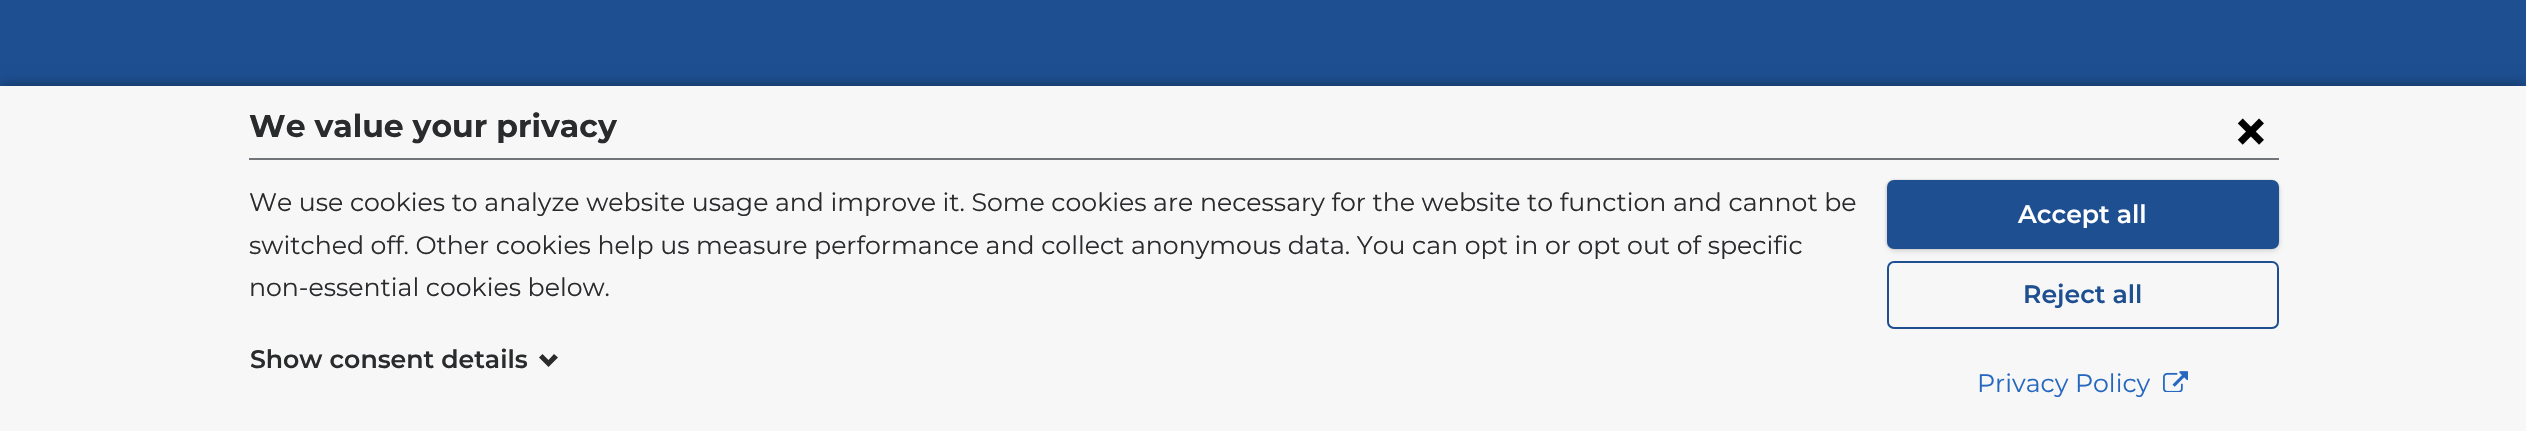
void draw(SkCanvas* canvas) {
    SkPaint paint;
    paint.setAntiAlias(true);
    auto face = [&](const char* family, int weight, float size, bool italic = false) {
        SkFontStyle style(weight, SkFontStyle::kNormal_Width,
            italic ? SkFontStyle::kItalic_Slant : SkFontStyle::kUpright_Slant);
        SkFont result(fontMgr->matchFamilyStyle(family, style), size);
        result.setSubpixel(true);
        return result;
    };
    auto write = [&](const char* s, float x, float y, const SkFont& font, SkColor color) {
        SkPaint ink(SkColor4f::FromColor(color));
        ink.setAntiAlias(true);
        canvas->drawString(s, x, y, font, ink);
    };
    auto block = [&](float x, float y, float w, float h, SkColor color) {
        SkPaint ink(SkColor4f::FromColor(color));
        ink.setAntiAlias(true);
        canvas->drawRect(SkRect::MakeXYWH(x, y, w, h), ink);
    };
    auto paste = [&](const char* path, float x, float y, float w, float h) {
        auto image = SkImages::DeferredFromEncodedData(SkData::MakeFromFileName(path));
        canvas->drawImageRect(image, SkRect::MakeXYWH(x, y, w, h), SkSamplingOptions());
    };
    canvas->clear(SkColorSetRGB(29, 79, 145));
    paint.setColor(SkColorSetARGB(102, 0, 0, 0));
    paint.setMaskFilter(SkMaskFilter::MakeBlur(kNormal_SkBlurStyle, 7));
    canvas->drawRect(SkRect::MakeXYWH(0, 86, 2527, 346), paint);
    paint.setMaskFilter(nullptr);
    block(0, 86, 2526, 345, SkColorSetRGB(247, 247, 248));
    block(249, 158, 2030, 2, SkColorSetRGB(113, 117, 122));
    auto kFont1 = face("Montserrat", 700, 31.5f);
    write("We value your privacy", 249, 137, kFont1, SkColorSetRGB(42, 43, 45));
    paste("pic1.png", 2237, 118, 27, 27);
    auto kFont2 = face("Montserrat", 400, 25.2f);
    write("We use cookies to analyze website usage and improve it. Some cookies are necessary for the website to function and cannot be", 249, 211, kFont2, SkColorSetRGB(42, 43, 45));
    write("switched off. Other cookies help us measure performance and collect anonymous data. You can opt in or opt out of specific", 249, 254, kFont2, SkColorSetRGB(42, 43, 45));
    write("non-essential cookies below.", 249, 296, kFont2, SkColorSetRGB(42, 43, 45));
    auto kFont3 = face("Montserrat", 600, 25.2f);
    write("Show consent details", 250, 368, kFont3, SkColorSetRGB(42, 43, 45));
    paint.setColor(SkColorSetRGB(42, 43, 45));
    canvas->drawPath(SkPathBuilder().moveTo(539, 357.5f).lineTo(542.5f, 354).lineTo(548.5f, 360).lineTo(554, 354).lineTo(558, 357.5f).lineTo(548.5f, 367).close().detach(), paint);
    paint.setColor(SkColorSetARGB(15, 0, 0, 0));
    paint.setMaskFilter(SkMaskFilter::MakeBlur(kNormal_SkBlurStyle, 0.5f));
    canvas->drawRoundRect(SkRect::MakeXYWH(1885, 179, 395, 71), 9, 9, paint);
    paint.setMaskFilter(nullptr);
    paint.setColor(SkColorSetARGB(26, 0, 0, 0));
    paint.setMaskFilter(SkMaskFilter::MakeBlur(kNormal_SkBlurStyle, 2));
    canvas->drawRoundRect(SkRect::MakeXYWH(1887, 182, 393, 70), 9, 9, paint);
    paint.setMaskFilter(nullptr);
    paint.setColor(SkColorSetRGB(29, 79, 145));
    canvas->drawRoundRect(SkRect::MakeXYWH(1888, 181, 390, 67), 6, 6, paint);
    paint.setStyle(SkPaint::kStroke_Style);
    paint.setStrokeWidth(2);
    canvas->drawRoundRect(SkRect::MakeXYWH(1888, 181, 390, 67), 6, 6, paint);
    write("Accept all", 2018, 223, kFont3, SK_ColorWHITE);
    canvas->drawRoundRect(SkRect::MakeXYWH(1888, 262, 390, 66), 6, 6, paint);
    write("Reject all", 2023, 303, kFont3, SkColorSetRGB(29, 79, 145));
    write("Privacy Policy", 1977, 392, kFont2, SkColorSetRGB(38, 104, 192));
    paste("pic2.png", 2163, 371, 25, 21);
}
